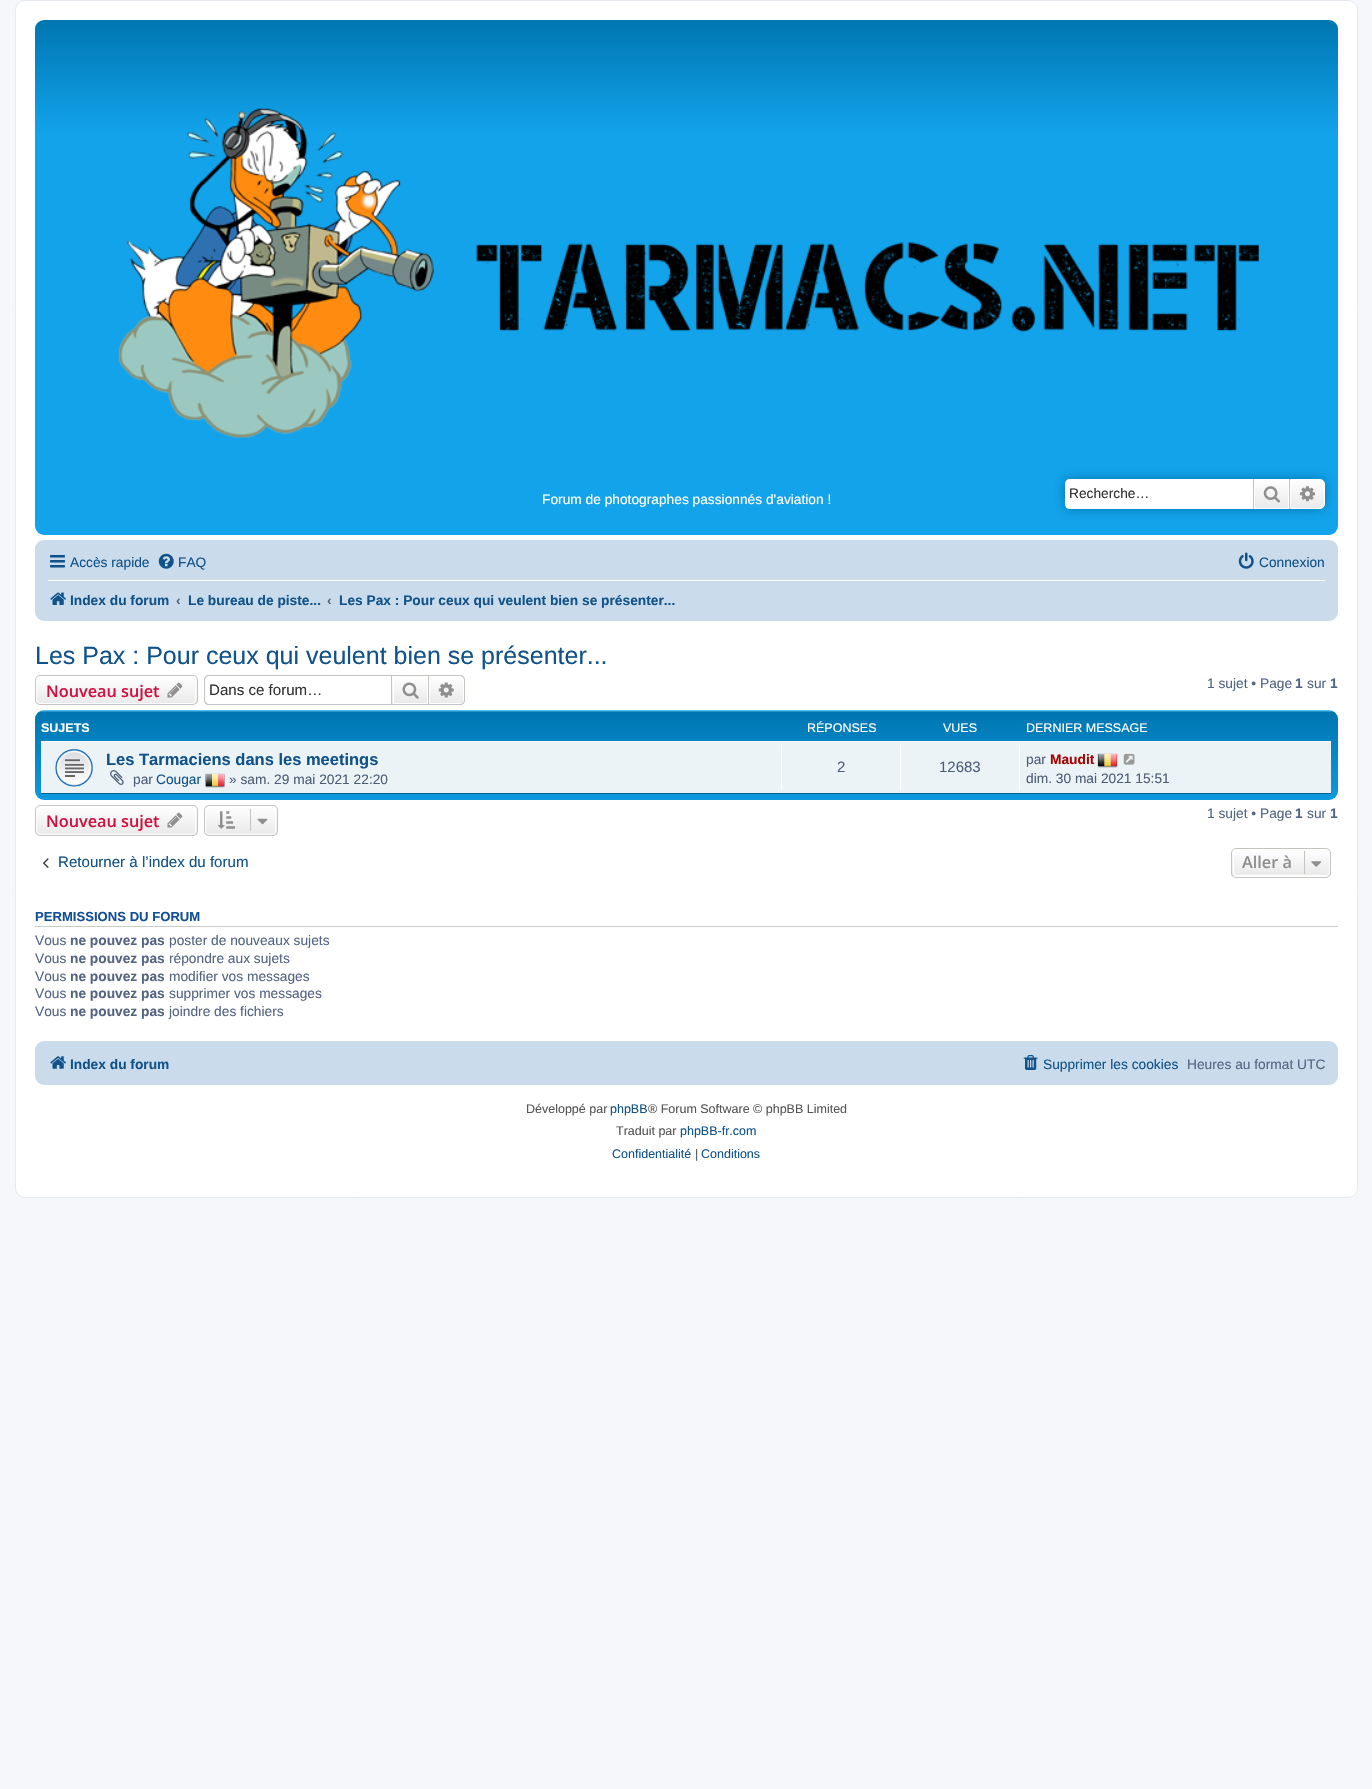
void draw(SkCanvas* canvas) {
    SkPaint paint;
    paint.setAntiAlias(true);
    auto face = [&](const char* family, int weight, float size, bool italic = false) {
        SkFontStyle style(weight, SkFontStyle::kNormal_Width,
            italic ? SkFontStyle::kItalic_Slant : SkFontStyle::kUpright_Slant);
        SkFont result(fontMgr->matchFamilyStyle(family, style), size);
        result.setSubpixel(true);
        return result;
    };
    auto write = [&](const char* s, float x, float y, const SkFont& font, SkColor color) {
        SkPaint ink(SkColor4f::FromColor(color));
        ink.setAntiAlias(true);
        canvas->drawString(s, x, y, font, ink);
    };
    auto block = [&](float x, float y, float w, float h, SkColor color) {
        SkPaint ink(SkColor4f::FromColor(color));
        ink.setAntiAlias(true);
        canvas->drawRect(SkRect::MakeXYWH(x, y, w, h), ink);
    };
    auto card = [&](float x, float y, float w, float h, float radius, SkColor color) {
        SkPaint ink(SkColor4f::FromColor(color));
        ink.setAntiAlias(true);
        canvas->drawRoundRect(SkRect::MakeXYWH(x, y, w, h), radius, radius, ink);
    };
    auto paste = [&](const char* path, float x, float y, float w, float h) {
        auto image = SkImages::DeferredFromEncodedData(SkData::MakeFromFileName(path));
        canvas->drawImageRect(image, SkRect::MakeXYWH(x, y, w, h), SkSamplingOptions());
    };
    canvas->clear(SkColorSetRGB(245, 247, 250));
    paint.setColor(SK_ColorWHITE);
    canvas->drawRoundRect(SkRect::MakeXYWH(15.5f, 0.5f, 1342, 1197), 9.5f, 9.5f, paint);
    paint.setStyle(SkPaint::kStroke_Style);
    paint.setStrokeWidth(1);
    paint.setColor(SkColorSetRGB(230, 233, 237));
    canvas->drawRoundRect(SkRect::MakeXYWH(15.5f, 0.5f, 1342, 1197), 9.5f, 9.5f, paint);
    paint.setStyle(SkPaint::kFill_Style);
    {
        const SkColor colors[] = {SkColorSetRGB(106, 206, 255), SkColorSetRGB(0, 118, 177), SkColorSetRGB(18, 163, 235), SkColorSetRGB(18, 163, 235)};
        const float stops[] = {0, 0, 0.22f, 1};
        const SkPoint ends[] = {{686, 20}, {686, 535}};
        paint.setShader(SkGradientShader::MakeLinear(ends, colors, stops, 4, SkTileMode::kClamp));
        paint.setAlpha(255);
    }
    canvas->drawRoundRect(SkRect::MakeXYWH(35, 20, 1303, 515), 9, 9, paint);
    paste("pic1.png", 118, 108, 1141, 330);
    auto kFont1 = face("Liberation Sans", 400, 13.75f);
    write("Forum de photographes passionnés d'aviation !", 542, 504, kFont1, SK_ColorWHITE);
    paint.setShader(nullptr);
    paint.setColor(SkColorSetRGB(0, 117, 176));
    paint.setMaskFilter(SkMaskFilter::MakeBlur(kNormal_SkBlurStyle, 6));
    canvas->drawRoundRect(SkRect::MakeXYWH(1065, 479, 260, 30), 5, 5, paint);
    paint.setMaskFilter(nullptr);
    paint.setColor(SK_ColorWHITE);
    canvas->drawPath(SkPathBuilder().moveTo(1070, 479).lineTo(1253, 479).lineTo(1253, 509).lineTo(1070, 509).cubicTo(1067, 509, 1065, 507, 1065, 504).lineTo(1065, 484).cubicTo(1065, 481, 1067, 479, 1070, 479).close().detach(), paint);
    write("Recherche…", 1069, 498, kFont1, SkColorSetRGB(51, 51, 51));
    {
        const SkColor colors[] = {SK_ColorWHITE, SkColorSetRGB(233, 233, 233)};
        const float stops[] = {0, 1};
        const SkPoint ends[] = {{1271, 479}, {1271, 509}};
        paint.setShader(SkGradientShader::MakeLinear(ends, colors, stops, 2, SkTileMode::kClamp));
        paint.setAlpha(255);
    }
    canvas->drawRect(SkRect::MakeXYWH(1255, 480, 33, 28), paint);
    paint.setStyle(SkPaint::kStroke_Style);
    paint.setShader(nullptr);
    paint.setColor(SK_ColorWHITE);
    canvas->drawRect(SkRect::MakeXYWH(1254.5f, 479.5f, 34, 29), paint);
    block(1289, 479, 1, 30, SkColorSetRGB(199, 195, 191));
    block(1253, 479, 1, 30, SkColorSetRGB(199, 195, 191));
    paste("pic2.png", 1263, 486, 17, 17);
    paint.setStyle(SkPaint::kFill_Style);
    {
        const SkColor colors[] = {SK_ColorWHITE, SkColorSetRGB(233, 233, 233)};
        const float stops[] = {0, 1};
        const SkPoint ends[] = {{1308, 479}, {1308, 509}};
        paint.setShader(SkGradientShader::MakeLinear(ends, colors, stops, 2, SkTileMode::kClamp));
        paint.setAlpha(255);
    }
    canvas->drawPath(SkPathBuilder().moveTo(1290.5f, 479.5f).lineTo(1320, 479.5f).cubicTo(1322.5f, 479.5f, 1324.5f, 481.5f, 1324.5f, 484).lineTo(1324.5f, 504).cubicTo(1324.5f, 506.5f, 1322.5f, 508.5f, 1320, 508.5f).lineTo(1290.5f, 508.5f).close().detach(), paint);
    paint.setStyle(SkPaint::kStroke_Style);
    paint.setShader(nullptr);
    paint.setColor(SK_ColorWHITE);
    canvas->drawPath(SkPathBuilder().moveTo(1290.5f, 479.5f).lineTo(1320, 479.5f).cubicTo(1322.5f, 479.5f, 1324.5f, 481.5f, 1324.5f, 484).lineTo(1324.5f, 504).cubicTo(1324.5f, 506.5f, 1322.5f, 508.5f, 1320, 508.5f).lineTo(1290.5f, 508.5f).close().detach(), paint);
    paste("pic3.png", 1300, 486, 15, 16);
    card(35, 540, 1303, 81, 9, SkColorSetRGB(202, 220, 235));
    paste("pic4.png", 50, 555, 15, 13);
    write("Accès rapide", 70, 567, kFont1, SkColorSetRGB(16, 82, 137));
    paste("pic5.png", 158, 553, 16, 16);
    write("FAQ", 178, 567, kFont1, SkColorSetRGB(16, 82, 137));
    paste("pic6.png", 1238, 552, 16, 17);
    write("Connexion", 1259, 567, kFont1, SkColorSetRGB(16, 82, 137));
    block(48, 580, 1277, 1, SK_ColorWHITE);
    paste("pic7.png", 50, 592, 16, 13);
    auto kFont2 = face("Liberation Sans", 700, 13.75f);
    write("Index du forum", 70, 605, kFont2, SkColorSetRGB(16, 82, 137));
    write("‹", 176, 605, kFont2, SkColorSetRGB(83, 100, 130));
    write("Le bureau de piste...", 188, 605, kFont2, SkColorSetRGB(16, 82, 137));
    write("‹", 327, 605, kFont2, SkColorSetRGB(83, 100, 130));
    write("Les Pax : Pour ceux qui veulent bien se présenter...", 339, 605, kFont2, SkColorSetRGB(16, 82, 137));
    auto kFont3 = face("Liberation Sans", 400, 25);
    write("Les Pax : Pour ceux qui veulent bien se présenter...", 35, 664, kFont3, SkColorSetRGB(16, 82, 137));
    canvas->save();
    canvas->clipPath(SkPathBuilder().moveTo(40, 675).lineTo(193, 675).cubicTo(196, 675, 198, 677, 198, 680).lineTo(198, 700).cubicTo(198, 703, 196, 705, 193, 705).lineTo(40, 705).cubicTo(37, 705, 35, 703, 35, 700).lineTo(35, 680).cubicTo(35, 677, 37, 675, 40, 675).close().detach(), true);
    paint.setStyle(SkPaint::kFill_Style);
    {
        const SkColor colors[] = {SK_ColorWHITE, SkColorSetRGB(233, 233, 233)};
        const float stops[] = {0, 1};
        const SkPoint ends[] = {{116, 676}, {116, 704}};
        paint.setShader(SkGradientShader::MakeLinear(ends, colors, stops, 2, SkTileMode::kClamp));
        paint.setAlpha(255);
    }
    canvas->drawRect(SkRect::MakeXYWH(35, 676, 163, 28), paint);
    canvas->restore();
    paint.setStyle(SkPaint::kStroke_Style);
    paint.setShader(nullptr);
    paint.setColor(SK_ColorWHITE);
    canvas->drawRoundRect(SkRect::MakeXYWH(36.5f, 676.5f, 159, 27), 3.5f, 3.5f, paint);
    paint.setColor(SkColorSetRGB(199, 195, 191));
    canvas->drawRoundRect(SkRect::MakeXYWH(35.5f, 675.5f, 162, 29), 4.5f, 4.5f, paint);
    auto kFont4 = face("Open Sans", 600, 16.25f);
    write("Nouveau sujet", 46, 697, kFont4, SkColorSetRGB(211, 17, 65));
    paste("pic8.png", 167, 682, 16, 16);
    paint.setStyle(SkPaint::kFill_Style);
    canvas->drawPath(SkPathBuilder(SkPathFillType::kEvenOdd).moveTo(209, 675).lineTo(391, 675).lineTo(391, 705).lineTo(209, 705).cubicTo(206, 705, 204, 703, 204, 700).lineTo(204, 680).cubicTo(204, 677, 206, 675, 209, 675).close().moveTo(209, 676).lineTo(391, 676).lineTo(391, 704).lineTo(209, 704).cubicTo(207, 704, 205, 702, 205, 700).lineTo(205, 680).cubicTo(205, 678, 207, 676, 209, 676).close().detach(), paint);
    auto kFont5 = face("Liberation Sans", 400, 15.1f);
    write("Dans ce forum…", 209, 695, kFont5, SkColorSetRGB(51, 51, 51));
    {
        const SkColor colors[] = {SK_ColorWHITE, SkColorSetRGB(233, 233, 233)};
        const float stops[] = {0, 1};
        const SkPoint ends[] = {{410, 676}, {410, 704}};
        paint.setShader(SkGradientShader::MakeLinear(ends, colors, stops, 2, SkTileMode::kClamp));
        paint.setAlpha(255);
    }
    canvas->drawRect(SkRect::MakeXYWH(392, 679, 35, 25), paint);
    paint.setStyle(SkPaint::kStroke_Style);
    paint.setShader(nullptr);
    paint.setColor(SK_ColorWHITE);
    canvas->drawRect(SkRect::MakeXYWH(393.5f, 676.5f, 34, 27), paint);
    paint.setColor(SkColorSetRGB(199, 195, 191));
    canvas->drawRect(SkRect::MakeXYWH(391.5f, 675.5f, 37, 29), paint);
    paste("pic9.png", 402, 682, 17, 17);
    paint.setStyle(SkPaint::kFill_Style);
    {
        const SkColor colors[] = {SK_ColorWHITE, SkColorSetRGB(233, 233, 233)};
        const float stops[] = {0, 1};
        const SkPoint ends[] = {{446, 676}, {446, 704}};
        paint.setShader(SkGradientShader::MakeLinear(ends, colors, stops, 2, SkTileMode::kClamp));
        paint.setAlpha(255);
    }
    canvas->drawPath(SkPathBuilder().moveTo(429.5f, 676.5f).lineTo(460, 676.5f).cubicTo(462, 676.5f, 463.5f, 678, 463.5f, 680).lineTo(463.5f, 700).cubicTo(463.5f, 702, 462, 703.5f, 460, 703.5f).lineTo(429.5f, 703.5f).close().detach(), paint);
    paint.setStyle(SkPaint::kStroke_Style);
    paint.setShader(nullptr);
    paint.setColor(SK_ColorWHITE);
    canvas->drawPath(SkPathBuilder().moveTo(429.5f, 676.5f).lineTo(460, 676.5f).cubicTo(462, 676.5f, 463.5f, 678, 463.5f, 680).lineTo(463.5f, 700).cubicTo(463.5f, 702, 462, 703.5f, 460, 703.5f).lineTo(429.5f, 703.5f).close().detach(), paint);
    paint.setStyle(SkPaint::kFill_Style);
    paint.setColor(SkColorSetRGB(199, 195, 191));
    canvas->drawPath(SkPathBuilder(SkPathFillType::kEvenOdd).moveTo(429, 675).lineTo(460, 675).cubicTo(463, 675, 465, 677, 465, 680).lineTo(465, 700).cubicTo(465, 703, 463, 705, 460, 705).lineTo(429, 705).close().moveTo(429, 676).lineTo(460, 676).cubicTo(462, 676, 464, 678, 464, 680).lineTo(464, 700).cubicTo(464, 702, 462, 704, 460, 704).lineTo(429, 704).close().detach(), paint);
    paste("pic10.png", 438, 682, 16, 16);
    write("1 sujet • Page", 1207, 688, kFont1, SkColorSetRGB(83, 100, 130));
    write("1", 1295, 688, kFont2, SkColorSetRGB(83, 100, 130));
    write("sur", 1307, 688, kFont1, SkColorSetRGB(83, 100, 130));
    write("1", 1330, 688, kFont2, SkColorSetRGB(83, 100, 130));
    {
        const SkColor colors[] = {SkColorSetRGB(106, 206, 255), SkColorSetRGB(0, 118, 177), SkColorSetRGB(18, 163, 235)};
        const float stops[] = {0, 0.02f, 1};
        const SkPoint ends[] = {{686, 710}, {686, 825}};
        paint.setShader(SkGradientShader::MakeLinear(ends, colors, stops, 3, SkTileMode::kClamp));
        paint.setAlpha(255);
    }
    canvas->drawRoundRect(SkRect::MakeXYWH(35, 710, 1303, 90), 9, 9, paint);
    auto kFont6 = face("Liberation Sans", 700, 12.5f);
    write("SUJETS", 41, 732, kFont6, SK_ColorWHITE);
    auto kFont7 = face("Liberation Sans", 400, 12.5f);
    write("RÉPONSES", 807, 732, kFont7, SK_ColorWHITE);
    write("VUES", 943, 732, kFont7, SK_ColorWHITE);
    write("DERNIER MESSAGE", 1026, 732, kFont7, SK_ColorWHITE);
    block(41, 742, 1290, 51, SkColorSetRGB(236, 243, 247));
    block(41, 741, 1290, 1, SK_ColorWHITE);
    block(41, 793, 1290, 1, SkColorSetRGB(0, 96, 143));
    paste("pic11.png", 55, 748, 38, 39);
    auto kFont8 = face("Liberation Sans", 700, 16.5f);
    write("Les Tarmaciens dans les meetings", 106, 765, kFont8, SkColorSetRGB(16, 82, 137));
    paste("pic12.png", 110, 770, 14, 15);
    write("par", 133, 784, kFont1, SkColorSetRGB(76, 93, 119));
    write("Cougar", 156, 784, kFont1, SkColorSetRGB(16, 82, 137));
    paste("pic13.png", 205, 773, 20, 15);
    write("» sam. 29 mai 2021 22:20", 229, 784, kFont1, SkColorSetRGB(76, 93, 119));
    block(781, 745, 1, 45, SK_ColorWHITE);
    auto kFont9 = face("Liberation Sans", 400, 15);
    write("2", 837, 772, kFont9, SkColorSetRGB(76, 93, 119));
    block(900, 745, 1, 45, SK_ColorWHITE);
    write("12683", 939, 772, kFont9, SkColorSetRGB(76, 93, 119));
    block(1019, 745, 1, 45, SK_ColorWHITE);
    write("par", 1026, 764, kFont1, SkColorSetRGB(76, 93, 119));
    write("Maudit", 1050, 764, kFont2, SkColorSetRGB(170, 0, 0));
    paste("pic14.png", 1097, 753, 21, 15);
    paste("pic15.png", 1123, 753, 12, 12);
    write("dim. 30 mai 2021 15:51", 1026, 783, kFont1, SkColorSetRGB(76, 93, 119));
    canvas->save();
    canvas->clipPath(SkPathBuilder().moveTo(40, 805).lineTo(193, 805).cubicTo(196, 805, 198, 807, 198, 810).lineTo(198, 831).cubicTo(198, 834, 196, 836, 193, 836).lineTo(40, 836).cubicTo(37, 836, 35, 834, 35, 831).lineTo(35, 810).cubicTo(35, 807, 37, 805, 40, 805).close().detach(), true);
    {
        const SkColor colors[] = {SK_ColorWHITE, SkColorSetRGB(233, 233, 233)};
        const float stops[] = {0, 1};
        const SkPoint ends[] = {{116, 806}, {116, 835}};
        paint.setShader(SkGradientShader::MakeLinear(ends, colors, stops, 2, SkTileMode::kClamp));
        paint.setAlpha(255);
    }
    canvas->drawRect(SkRect::MakeXYWH(35, 806, 163, 29), paint);
    canvas->restore();
    paint.setStyle(SkPaint::kStroke_Style);
    paint.setShader(nullptr);
    paint.setColor(SK_ColorWHITE);
    canvas->drawRoundRect(SkRect::MakeXYWH(36.5f, 806.5f, 159, 28), 3.5f, 3.5f, paint);
    paint.setColor(SkColorSetRGB(199, 195, 191));
    canvas->drawRoundRect(SkRect::MakeXYWH(35.5f, 805.5f, 162, 30), 4.5f, 4.5f, paint);
    write("Nouveau sujet", 46, 827, kFont4, SkColorSetRGB(211, 17, 65));
    paste("pic16.png", 167, 812, 16, 16);
    canvas->save();
    canvas->clipPath(SkPathBuilder().moveTo(209, 805).lineTo(273, 805).cubicTo(276, 805, 278, 807, 278, 810).lineTo(278, 831).cubicTo(278, 834, 276, 836, 273, 836).lineTo(209, 836).cubicTo(206, 836, 204, 834, 204, 831).lineTo(204, 810).cubicTo(204, 807, 206, 805, 209, 805).close().detach(), true);
    paint.setStyle(SkPaint::kFill_Style);
    {
        const SkColor colors[] = {SK_ColorWHITE, SkColorSetRGB(233, 233, 233)};
        const float stops[] = {0, 1};
        const SkPoint ends[] = {{241, 806}, {241, 835}};
        paint.setShader(SkGradientShader::MakeLinear(ends, colors, stops, 2, SkTileMode::kClamp));
        paint.setAlpha(255);
    }
    canvas->drawRect(SkRect::MakeXYWH(204, 806, 74, 29), paint);
    canvas->restore();
    paint.setStyle(SkPaint::kStroke_Style);
    paint.setShader(nullptr);
    paint.setColor(SK_ColorWHITE);
    canvas->drawRoundRect(SkRect::MakeXYWH(205.5f, 806.5f, 70, 28), 3.5f, 3.5f, paint);
    paint.setColor(SkColorSetRGB(199, 195, 191));
    canvas->drawRoundRect(SkRect::MakeXYWH(204.5f, 805.5f, 73, 30), 4.5f, 4.5f, paint);
    paste("pic17.png", 217, 811, 18, 18);
    block(250, 809, 1, 22, SkColorSetRGB(199, 195, 191));
    paste("pic18.png", 257, 818, 11, 7);
    write("1 sujet • Page", 1207, 818, kFont1, SkColorSetRGB(83, 100, 130));
    write("1", 1295, 818, kFont2, SkColorSetRGB(83, 100, 130));
    write("sur", 1307, 818, kFont1, SkColorSetRGB(83, 100, 130));
    write("1", 1330, 818, kFont2, SkColorSetRGB(83, 100, 130));
    paste("pic19.png", 43, 858, 6, 10);
    write("Retourner à l’index du forum", 58, 867, kFont5, SkColorSetRGB(16, 82, 137));
    canvas->save();
    canvas->clipPath(SkPathBuilder().moveTo(1236, 848).lineTo(1326, 848).cubicTo(1329, 848, 1331, 850, 1331, 853).lineTo(1331, 873).cubicTo(1331, 876, 1329, 878, 1326, 878).lineTo(1236, 878).cubicTo(1233, 878, 1231, 876, 1231, 873).lineTo(1231, 853).cubicTo(1231, 850, 1233, 848, 1236, 848).close().detach(), true);
    paint.setStyle(SkPaint::kFill_Style);
    {
        const SkColor colors[] = {SK_ColorWHITE, SkColorSetRGB(233, 233, 233)};
        const float stops[] = {0, 1};
        const SkPoint ends[] = {{1281, 849}, {1281, 876}};
        paint.setShader(SkGradientShader::MakeLinear(ends, colors, stops, 2, SkTileMode::kClamp));
        paint.setAlpha(255);
    }
    canvas->drawRect(SkRect::MakeXYWH(1231, 849, 100, 27), paint);
    canvas->restore();
    paint.setStyle(SkPaint::kStroke_Style);
    paint.setShader(nullptr);
    paint.setColor(SK_ColorWHITE);
    canvas->drawRoundRect(SkRect::MakeXYWH(1233.5f, 849.5f, 96, 26), 3.5f, 3.5f, paint);
    paint.setColor(SkColorSetRGB(199, 195, 191));
    canvas->drawRoundRect(SkRect::MakeXYWH(1231.5f, 848.5f, 99, 29), 4.5f, 4.5f, paint);
    write("Aller à", 1242, 868, kFont4, SkColorSetRGB(143, 143, 143));
    block(1304, 851, 1, 23, SkColorSetRGB(199, 195, 191));
    paste("pic20.png", 1311, 861, 11, 6);
    block(35, 926, 1303, 1, SkColorSetRGB(204, 204, 204));
    auto kFont10 = face("Liberation Sans", 700, 13.1f);
    write("PERMISSIONS DU FORUM", 35, 921, kFont10, SkColorSetRGB(17, 80, 152));
    write("Vous", 35, 945, kFont1, SkColorSetRGB(83, 100, 130));
    write("ne pouvez pas", 70, 945, kFont2, SkColorSetRGB(83, 100, 130));
    write("poster de nouveaux sujets", 169, 945, kFont1, SkColorSetRGB(83, 100, 130));
    write("Vous", 35, 963, kFont1, SkColorSetRGB(83, 100, 130));
    write("ne pouvez pas", 70, 963, kFont2, SkColorSetRGB(83, 100, 130));
    write("répondre aux sujets", 169, 963, kFont1, SkColorSetRGB(83, 100, 130));
    write("Vous", 35, 981, kFont1, SkColorSetRGB(83, 100, 130));
    write("ne pouvez pas", 70, 981, kFont2, SkColorSetRGB(83, 100, 130));
    write("modifier vos messages", 169, 981, kFont1, SkColorSetRGB(83, 100, 130));
    write("Vous", 35, 998, kFont1, SkColorSetRGB(83, 100, 130));
    write("ne pouvez pas", 70, 998, kFont2, SkColorSetRGB(83, 100, 130));
    write("supprimer vos messages", 169, 998, kFont1, SkColorSetRGB(83, 100, 130));
    write("Vous", 35, 1016, kFont1, SkColorSetRGB(83, 100, 130));
    write("ne pouvez pas", 70, 1016, kFont2, SkColorSetRGB(83, 100, 130));
    write("joindre des fichiers", 169, 1016, kFont1, SkColorSetRGB(83, 100, 130));
    card(35, 1041, 1303, 44, 9, SkColorSetRGB(202, 220, 235));
    paste("pic21.png", 50, 1056, 16, 13);
    write("Index du forum", 70, 1069, kFont2, SkColorSetRGB(16, 82, 137));
    paste("pic22.png", 1023, 1055, 15, 15);
    write("Supprimer les cookies", 1043, 1069, kFont1, SkColorSetRGB(16, 82, 137));
    write("Heures au format UTC", 1187, 1069, kFont1, SkColorSetRGB(83, 100, 130));
    write("Développé par", 526, 1113, kFont7, SkColorSetRGB(85, 85, 85));
    write("phpBB", 610, 1113, kFont7, SkColorSetRGB(16, 82, 137));
    write("® Forum Software © phpBB Limited", 648, 1113, kFont7, SkColorSetRGB(85, 85, 85));
    write("Traduit par", 616, 1135, kFont7, SkColorSetRGB(85, 85, 85));
    write("phpBB-fr.com", 680, 1135, kFont7, SkColorSetRGB(16, 82, 137));
    write("Confidentialité", 612, 1158, kFont7, SkColorSetRGB(16, 82, 137));
    write("|", 695, 1158, kFont7, SkColorSetRGB(85, 85, 85));
    write("Conditions", 701, 1158, kFont7, SkColorSetRGB(16, 82, 137));
}
